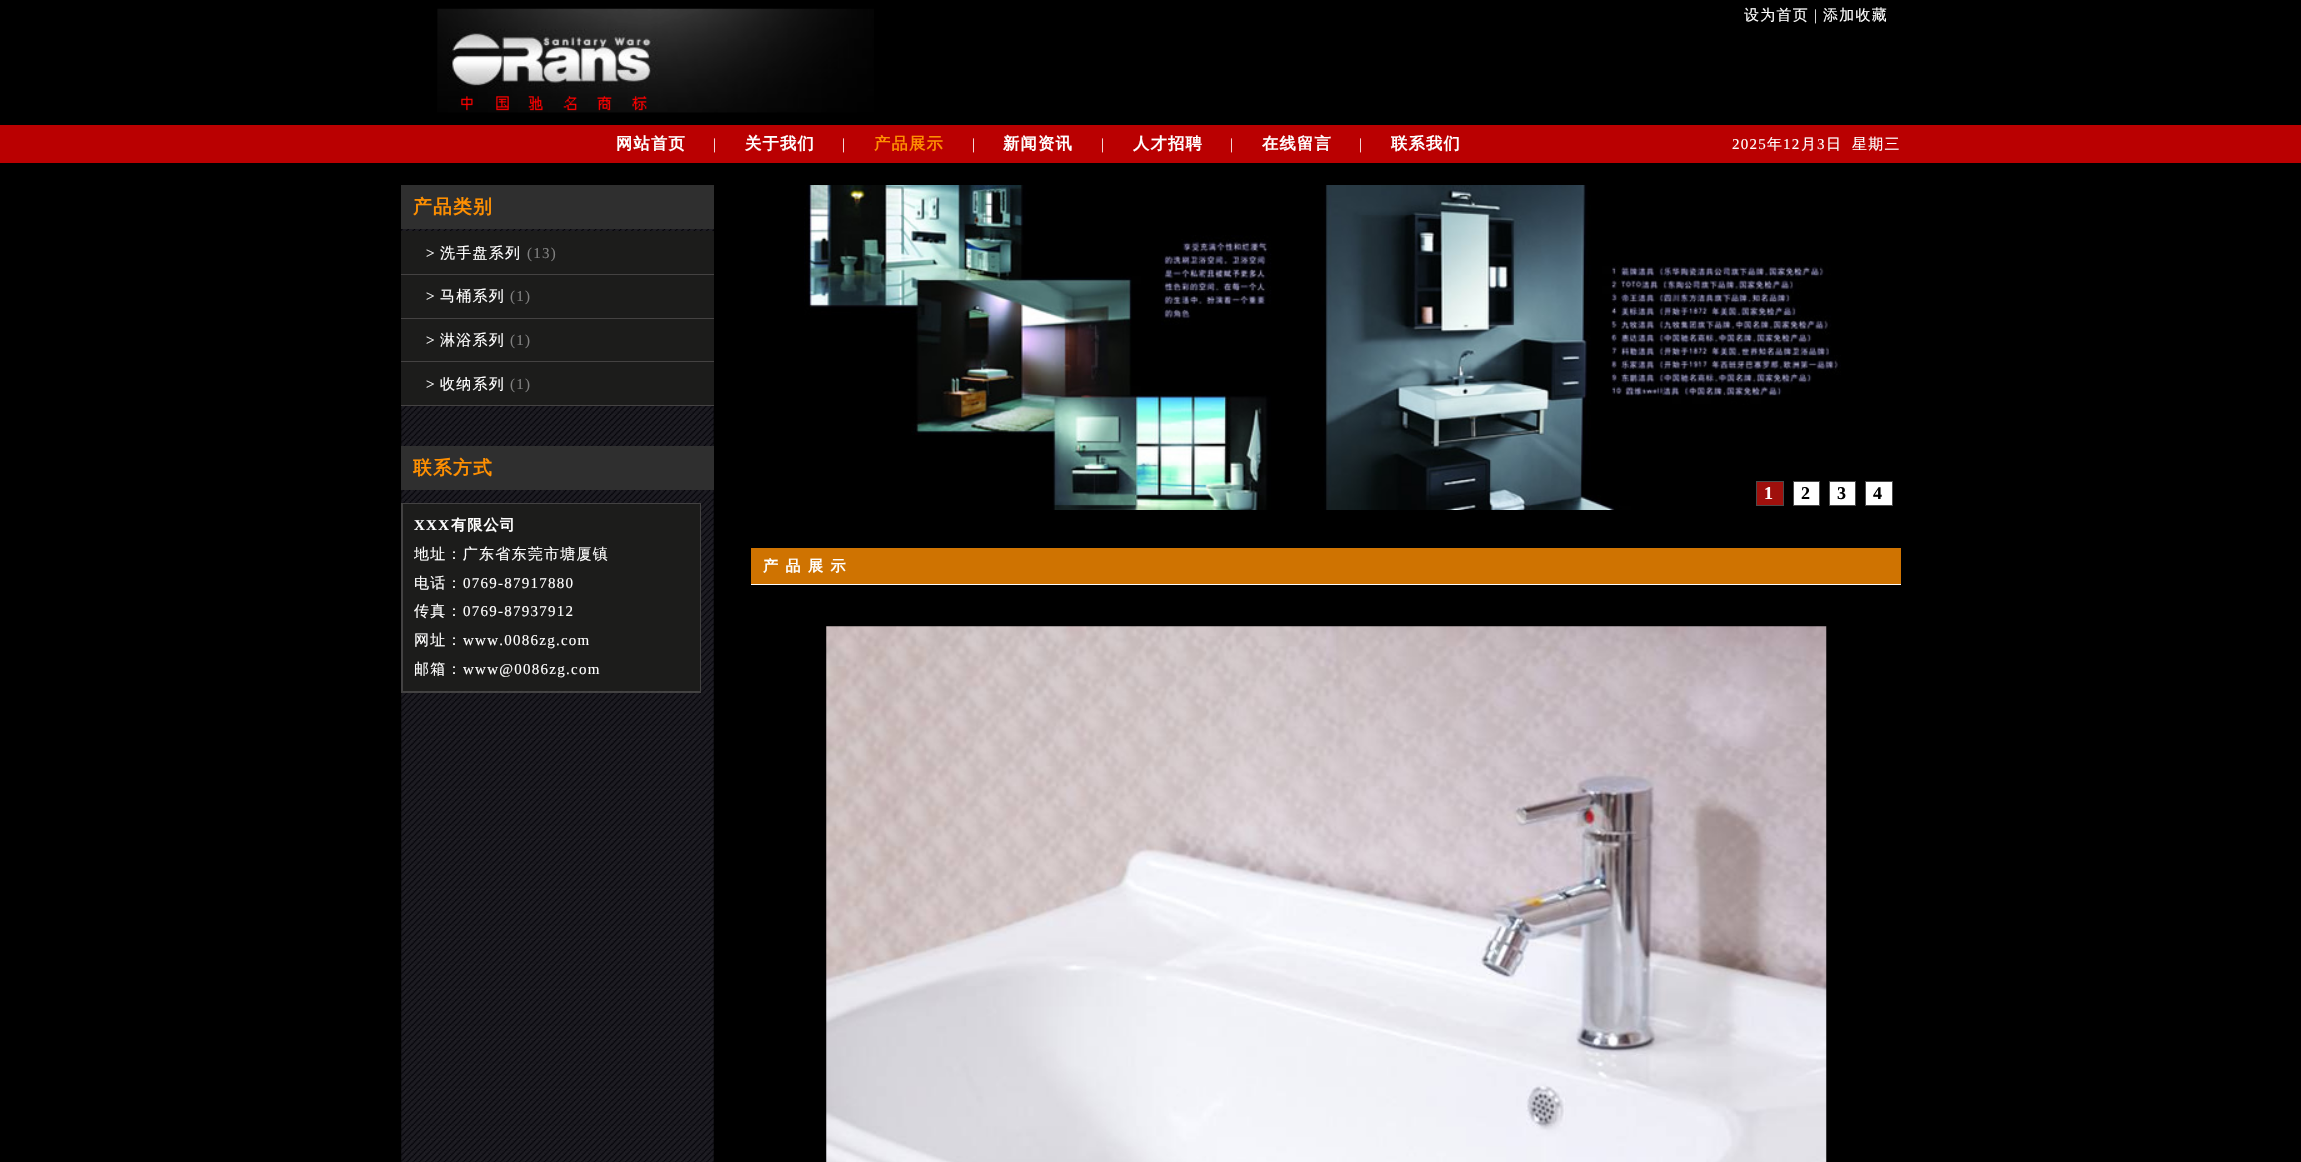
void draw(SkCanvas* canvas) {
    SkPaint paint;
    paint.setAntiAlias(true);
    auto face = [&](const char* family, int weight, float size, bool italic = false) {
        SkFontStyle style(weight, SkFontStyle::kNormal_Width,
            italic ? SkFontStyle::kItalic_Slant : SkFontStyle::kUpright_Slant);
        SkFont result(fontMgr->matchFamilyStyle(family, style), size);
        result.setSubpixel(true);
        return result;
    };
    auto writeSpaced = [&](const char* s, float x, float y, const SkFont& font, const SkPaint& ink, float letter, float word) {
        std::vector<SkGlyphID> glyphs(font.countText(s, strlen(s), SkTextEncoding::kUTF8));
        std::vector<float> xs(glyphs.size());
        font.textToGlyphs(s, strlen(s), SkTextEncoding::kUTF8, glyphs);
        font.getXPos(glyphs, xs, x);
        float extra = 0;
        for (size_t i = 0; i < glyphs.size(); i++) {
            xs[i] += extra;
            extra += letter + word * (glyphs[i] == font.unicharToGlyph(' '));
        }
        canvas->drawTextBlob(SkTextBlob::MakeFromPosHGlyphs(glyphs, xs, y, font), 0, 0, ink);
    };
    auto block = [&](float x, float y, float w, float h, SkColor color) {
        SkPaint ink(SkColor4f::FromColor(color));
        ink.setAntiAlias(true);
        canvas->drawRect(SkRect::MakeXYWH(x, y, w, h), ink);
    };
    auto paste = [&](const char* path, float x, float y, float w, float h) {
        auto image = SkImages::DeferredFromEncodedData(SkData::MakeFromFileName(path));
        canvas->drawImageRect(image, SkRect::MakeXYWH(x, y, w, h), SkSamplingOptions());
    };
    canvas->clear(SK_ColorBLACK);
    paste("pic1.png", 437, 8, 437, 105);
    auto kFont1 = face("WenQuanYi Zen Hei", 500, 15);
    paint.setColor(SK_ColorWHITE);
    writeSpaced("设为首页", 1744, 20, kFont1, paint, 1.25f, 0);
    auto kFont2 = face("Liberation Serif", 400, 15);
    writeSpaced("|", 1814, 20, kFont2, paint, 1.25f, 0);
    writeSpaced("添加收藏", 1823, 20, kFont1, paint, 1.25f, 0);
    block(0, 125, 2301, 38, SkColorSetRGB(186, 0, 1));
    auto kFont3 = face("WenQuanYi Zen Hei", 700, 16.25f);
    writeSpaced("网站首页", 616, 149, kFont3, paint, 1.25f, 0);
    writeSpaced("|", 713, 149, kFont2, paint, 1.25f, 0);
    writeSpaced("关于我们", 745, 149, kFont3, paint, 1.25f, 0);
    writeSpaced("|", 842, 149, kFont2, paint, 1.25f, 0);
    paint.setColor(SkColorSetRGB(254, 143, 1));
    writeSpaced("产品展示", 874, 149, kFont3, paint, 1.25f, 0);
    paint.setColor(SK_ColorWHITE);
    writeSpaced("|", 972, 149, kFont2, paint, 1.25f, 0);
    writeSpaced("新闻资讯", 1003, 149, kFont3, paint, 1.25f, 0);
    writeSpaced("|", 1101, 149, kFont2, paint, 1.25f, 0);
    writeSpaced("人才招聘", 1133, 149, kFont3, paint, 1.25f, 0);
    writeSpaced("|", 1230, 149, kFont2, paint, 1.25f, 0);
    writeSpaced("在线留言", 1262, 149, kFont3, paint, 1.25f, 0);
    writeSpaced("|", 1359, 149, kFont2, paint, 1.25f, 0);
    writeSpaced("联系我们", 1391, 149, kFont3, paint, 1.25f, 0);
    writeSpaced("2025", 1732, 149, kFont2, paint, 1.25f, 0);
    writeSpaced("年", 1767, 149, kFont1, paint, 1.25f, 0);
    writeSpaced("12", 1783, 149, kFont2, paint, 1.25f, 0);
    writeSpaced("月", 1801, 149, kFont1, paint, 1.25f, 0);
    writeSpaced("3", 1817, 149, kFont2, paint, 1.25f, 0);
    writeSpaced("日", 1826, 149, kFont1, paint, 1.25f, 0);
    writeSpaced("星期三", 1852, 149, kFont1, paint, 1.25f, 0);
    paste("pic2.png", 401, 229, 313, 933);
    block(401, 185, 313, 44, SkColorSetRGB(47, 47, 47));
    auto kFont4 = face("WenQuanYi Zen Hei", 700, 18.75f);
    paint.setColor(SkColorSetRGB(254, 143, 1));
    writeSpaced("产品类别", 413, 213, kFont4, paint, 1.25f, 0);
    block(401, 231, 313, 43, SkColorSetRGB(28, 28, 27));
    block(401, 274, 313, 1, SkColorSetRGB(68, 66, 66));
    paint.setColor(SK_ColorWHITE);
    writeSpaced(">", 426, 258, kFont2, paint, 1.25f, 0);
    writeSpaced("洗手盘系列", 440, 258, kFont1, paint, 1.25f, 0);
    paint.setColor(SkColorSetRGB(128, 128, 128));
    writeSpaced("(13)", 527, 258, kFont2, paint, 1.25f, 0);
    block(401, 275, 313, 43, SkColorSetRGB(28, 28, 27));
    block(401, 318, 313, 1, SkColorSetRGB(68, 66, 66));
    paint.setColor(SK_ColorWHITE);
    writeSpaced(">", 426, 301, kFont2, paint, 1.25f, 0);
    writeSpaced("马桶系列", 440, 301, kFont1, paint, 1.25f, 0);
    paint.setColor(SkColorSetRGB(128, 128, 128));
    writeSpaced("(1)", 510, 301, kFont2, paint, 1.25f, 0);
    block(401, 319, 313, 86, SkColorSetRGB(28, 28, 27));
    block(401, 361, 313, 1, SkColorSetRGB(68, 66, 66));
    paint.setColor(SK_ColorWHITE);
    writeSpaced(">", 426, 345, kFont2, paint, 1.25f, 0);
    writeSpaced("淋浴系列", 440, 345, kFont1, paint, 1.25f, 0);
    paint.setColor(SkColorSetRGB(128, 128, 128));
    writeSpaced("(1)", 510, 345, kFont2, paint, 1.25f, 0);
    block(401, 405, 313, 1, SkColorSetRGB(68, 66, 66));
    paint.setColor(SK_ColorWHITE);
    writeSpaced(">", 426, 389, kFont2, paint, 1.25f, 0);
    writeSpaced("收纳系列", 440, 389, kFont1, paint, 1.25f, 0);
    paint.setColor(SkColorSetRGB(128, 128, 128));
    writeSpaced("(1)", 510, 389, kFont2, paint, 1.25f, 0);
    block(401, 446, 313, 44, SkColorSetRGB(47, 47, 47));
    paint.setColor(SkColorSetRGB(254, 143, 1));
    writeSpaced("联系方式", 413, 474, kFont4, paint, 1.25f, 0);
    block(401, 503, 300, 190, SkColorSetRGB(67, 66, 66));
    block(403, 504, 297, 187, SkColorSetRGB(28, 28, 27));
    auto kFont5 = face("Liberation Serif", 700, 15);
    paint.setColor(SK_ColorWHITE);
    writeSpaced("XXX", 414, 530, kFont5, paint, 1.25f, 0);
    auto kFont6 = face("WenQuanYi Zen Hei", 700, 15);
    writeSpaced("有限公司", 451, 530, kFont6, paint, 1.25f, 0);
    writeSpaced("地址：广东省东莞市塘厦镇", 414, 559, kFont1, paint, 1.25f, 0);
    writeSpaced("电话：", 414, 588, kFont1, paint, 1.25f, 0);
    writeSpaced("0769-87917880", 463, 588, kFont2, paint, 1.25f, 0);
    writeSpaced("传真：", 414, 616, kFont1, paint, 1.25f, 0);
    writeSpaced("0769-87937912", 463, 616, kFont2, paint, 1.25f, 0);
    writeSpaced("网址：", 414, 645, kFont1, paint, 1.25f, 0);
    writeSpaced("www.0086zg.com", 463, 645, kFont2, paint, 1.25f, 0);
    writeSpaced("邮箱：", 414, 674, kFont1, paint, 1.25f, 0);
    writeSpaced("www@0086zg.com", 463, 674, kFont2, paint, 1.25f, 0);
    paste("pic3.png", 804, 185, 1037, 325);
    paint.setColor(SkColorSetRGB(159, 16, 12));
    canvas->drawRect(SkRect::MakeXYWH(1756.5f, 481.5f, 27, 24), paint);
    paint.setStyle(SkPaint::kStroke_Style);
    paint.setStrokeWidth(1);
    paint.setColor(SkColorSetRGB(74, 74, 74));
    canvas->drawRect(SkRect::MakeXYWH(1756.5f, 481.5f, 27, 24), paint);
    auto kFont7 = face("Liberation Serif", 700, 18);
    paint.setStyle(SkPaint::kFill_Style);
    paint.setColor(SK_ColorWHITE);
    writeSpaced("1", 1764, 499, kFont7, paint, 1.25f, 0);
    canvas->drawRect(SkRect::MakeXYWH(1793.5f, 481.5f, 26, 24), paint);
    paint.setStyle(SkPaint::kStroke_Style);
    paint.setColor(SkColorSetRGB(74, 74, 74));
    canvas->drawRect(SkRect::MakeXYWH(1793.5f, 481.5f, 26, 24), paint);
    paint.setStyle(SkPaint::kFill_Style);
    paint.setColor(SK_ColorBLACK);
    writeSpaced("2", 1801, 499, kFont7, paint, 1.25f, 0);
    paint.setColor(SK_ColorWHITE);
    canvas->drawRect(SkRect::MakeXYWH(1829.5f, 481.5f, 26, 24), paint);
    paint.setStyle(SkPaint::kStroke_Style);
    paint.setColor(SkColorSetRGB(74, 74, 74));
    canvas->drawRect(SkRect::MakeXYWH(1829.5f, 481.5f, 26, 24), paint);
    paint.setStyle(SkPaint::kFill_Style);
    paint.setColor(SK_ColorBLACK);
    writeSpaced("3", 1837, 499, kFont7, paint, 1.25f, 0);
    paint.setColor(SK_ColorWHITE);
    canvas->drawRect(SkRect::MakeXYWH(1865.5f, 481.5f, 27, 24), paint);
    paint.setStyle(SkPaint::kStroke_Style);
    paint.setColor(SkColorSetRGB(74, 74, 74));
    canvas->drawRect(SkRect::MakeXYWH(1865.5f, 481.5f, 27, 24), paint);
    paint.setStyle(SkPaint::kFill_Style);
    paint.setColor(SK_ColorBLACK);
    writeSpaced("4", 1873, 499, kFont7, paint, 1.25f, 0);
    block(751, 548, 1150, 36, SkColorSetRGB(207, 115, 1));
    block(751, 584, 1150, 1, SK_ColorWHITE);
    paint.setColor(SK_ColorWHITE);
    writeSpaced("产品展示", 763, 571, kFont6, paint, 7.5f, 0);
    paste("pic4.png", 826, 626, 1001, 536);
}
